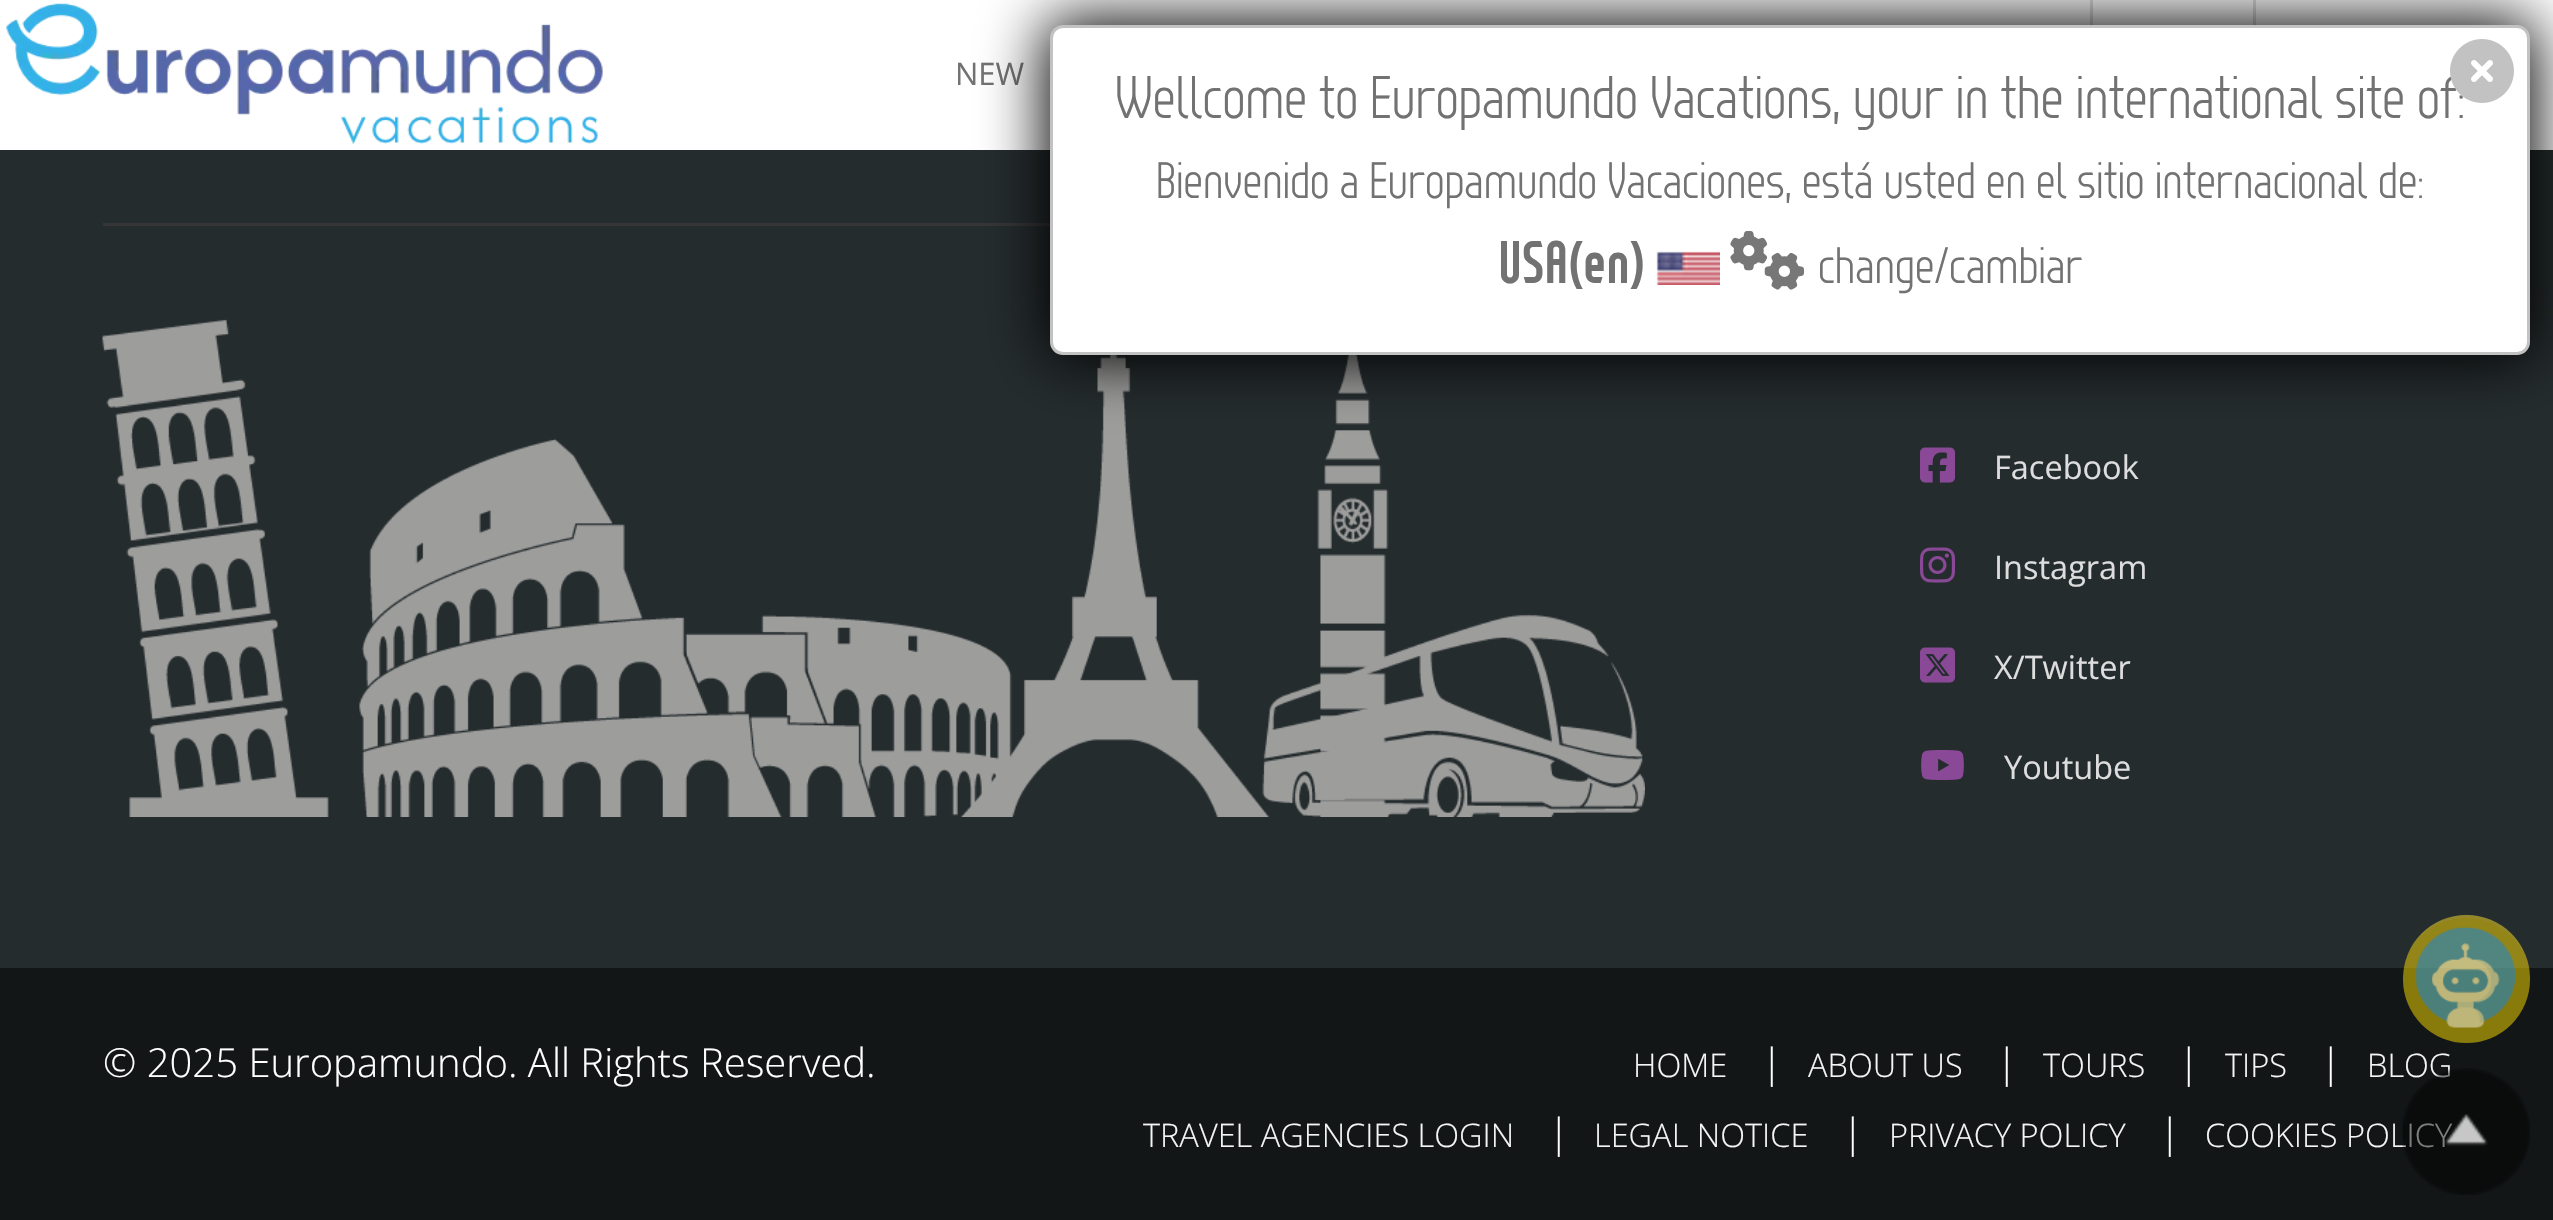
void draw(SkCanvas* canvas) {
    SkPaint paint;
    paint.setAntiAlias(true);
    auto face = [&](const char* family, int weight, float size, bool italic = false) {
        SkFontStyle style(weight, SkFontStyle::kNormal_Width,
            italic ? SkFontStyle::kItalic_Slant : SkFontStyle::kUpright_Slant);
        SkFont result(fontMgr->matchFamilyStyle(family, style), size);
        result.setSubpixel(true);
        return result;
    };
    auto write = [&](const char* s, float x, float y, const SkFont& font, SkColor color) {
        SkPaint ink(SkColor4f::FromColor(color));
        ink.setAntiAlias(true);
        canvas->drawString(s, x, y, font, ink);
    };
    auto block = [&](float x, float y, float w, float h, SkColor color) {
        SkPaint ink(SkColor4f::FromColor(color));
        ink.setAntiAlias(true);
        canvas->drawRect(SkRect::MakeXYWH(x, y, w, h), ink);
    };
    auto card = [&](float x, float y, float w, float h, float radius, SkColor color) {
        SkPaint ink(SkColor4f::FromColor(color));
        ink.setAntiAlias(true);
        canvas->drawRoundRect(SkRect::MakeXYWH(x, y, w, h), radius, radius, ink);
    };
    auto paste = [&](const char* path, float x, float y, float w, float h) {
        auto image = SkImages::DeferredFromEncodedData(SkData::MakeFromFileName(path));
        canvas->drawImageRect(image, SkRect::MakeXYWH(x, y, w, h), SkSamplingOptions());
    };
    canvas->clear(SkColorSetRGB(37, 44, 46));
    block(0, 0, 2553, 150, SK_ColorWHITE);
    paste("pic1.png", 6, 3, 597, 141);
    auto kFont1 = face("Open Sans", 400, 31);
    write("NEW", 955, 85, kFont1, SkColorSetRGB(114, 114, 114));
    block(2090, 0, 3, 25, SkColorSetRGB(222, 222, 222));
    block(2253, 0, 3, 25, SkColorSetRGB(222, 222, 222));
    block(103, 223, 947, 3, SkColorSetRGB(54, 54, 54));
    paste("pic2.png", 102, 319, 1543, 498);
    paste("pic3.png", 1920, 447, 35, 36);
    auto kFont2 = face("Open Sans", 400, 32.5f);
    write("Facebook", 1994, 479, kFont2, SkColorSetRGB(221, 221, 221));
    paste("pic4.png", 1920, 547, 35, 36);
    write("Instagram", 1994, 579, kFont2, SkColorSetRGB(221, 221, 221));
    paste("pic5.png", 1920, 647, 35, 36);
    write("X/Twitter", 1994, 679, kFont2, SkColorSetRGB(221, 221, 221));
    paste("pic6.png", 1921, 750, 43, 30);
    write("Youtube", 2004, 779, kFont2, SkColorSetRGB(221, 221, 221));
    block(0, 968, 2553, 252, SkColorSetRGB(18, 22, 23));
    auto kFont3 = face("Open Sans", 300, 40);
    write("© 2025 Europamundo. All Rights Reserved.", 103, 1077, kFont3, SK_ColorWHITE);
    auto kFont4 = face("Open Sans", 300, 32.5f);
    write("HOME", 1633, 1077, kFont4, SkColorSetRGB(245, 245, 245));
    write("|", 1761, 1077, kFont3, SK_ColorWHITE);
    write("ABOUT US", 1808, 1077, kFont4, SkColorSetRGB(245, 245, 245));
    write("|", 1996, 1077, kFont3, SK_ColorWHITE);
    write("TOURS", 2043, 1077, kFont4, SkColorSetRGB(245, 245, 245));
    write("|", 2178, 1077, kFont3, SK_ColorWHITE);
    write("TIPS", 2225, 1077, kFont4, SkColorSetRGB(245, 245, 245));
    write("|", 2320, 1077, kFont3, SK_ColorWHITE);
    write("BLOG", 2367, 1077, kFont4, SkColorSetRGB(245, 245, 245));
    write("TRAVEL AGENCIES LOGIN", 1143, 1147, kFont4, SkColorSetRGB(245, 245, 245));
    write("|", 1548, 1147, kFont3, SK_ColorWHITE);
    write("LEGAL NOTICE", 1594, 1147, kFont4, SkColorSetRGB(245, 245, 245));
    write("|", 1842, 1147, kFont3, SK_ColorWHITE);
    write("PRIVACY POLICY", 1889, 1147, kFont4, SkColorSetRGB(245, 245, 245));
    write("|", 2159, 1147, kFont3, SK_ColorWHITE);
    write("COOKIES POLICY", 2205, 1147, kFont4, SkColorSetRGB(245, 245, 245));
    paint.setColor(SK_ColorBLACK);
    paint.setMaskFilter(SkMaskFilter::MakeBlur(kNormal_SkBlurStyle, 31));
    canvas->drawRoundRect(SkRect::MakeXYWH(1045, 20, 1490, 340), 18, 18, paint);
    paint.setMaskFilter(nullptr);
    paint.setColor(SK_ColorWHITE);
    canvas->drawRoundRect(SkRect::MakeXYWH(1051.5f, 26.5f, 1477, 327), 11.5f, 11.5f, paint);
    paint.setStyle(SkPaint::kStroke_Style);
    paint.setStrokeWidth(3);
    paint.setColor(SkColorSetRGB(194, 194, 194));
    canvas->drawRoundRect(SkRect::MakeXYWH(1051.5f, 26.5f, 1477, 327), 11.5f, 11.5f, paint);
    auto kFont5 = face("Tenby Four", 300, 60);
    write("Wellcome to Europamundo Vacations, your in the international site of:", 1115, 118, kFont5, SkColorSetRGB(114, 114, 114));
    paste("pic7.png", 2450, 39, 64, 64);
    auto kFont6 = face("Tenby Four", 300, 51);
    write("Bienvenido a Europamundo Vacaciones, está usted en el sitio internacional de:", 1156, 198, kFont6, SkColorSetRGB(114, 114, 114));
    auto kFont7 = face("Tenby Four", 700, 60);
    write("USA(en)", 1498, 283, kFont7, SkColorSetRGB(114, 114, 114));
    paste("pic8.png", 1656, 251, 64, 34);
    paste("pic9.png", 1730, 230, 75, 60);
    write("change/cambiar", 1818, 283, kFont6, SkColorSetRGB(114, 114, 114));
    card(2403, 915, 127, 128, 63.5f, SkColorSetARGB(128, 255, 221, 0));
    paint.setStyle(SkPaint::kFill_Style);
    paint.setColor(SkColorSetARGB(38, 146, 150, 151));
    canvas->drawPath(SkPathBuilder().moveTo(2466, 918).cubicTo(2501, 918, 2530, 946, 2530, 980).cubicTo(2531, 928, 2472, 896, 2429, 927).cubicTo(2418, 935, 2410, 946, 2406, 958).cubicTo(2415, 935, 2439, 918, 2466, 918).close().detach(), paint);
    paste("pic10.png", 2415, 927, 100, 101);
    paste("pic11.png", 2402, 1068, 128, 127);
}
